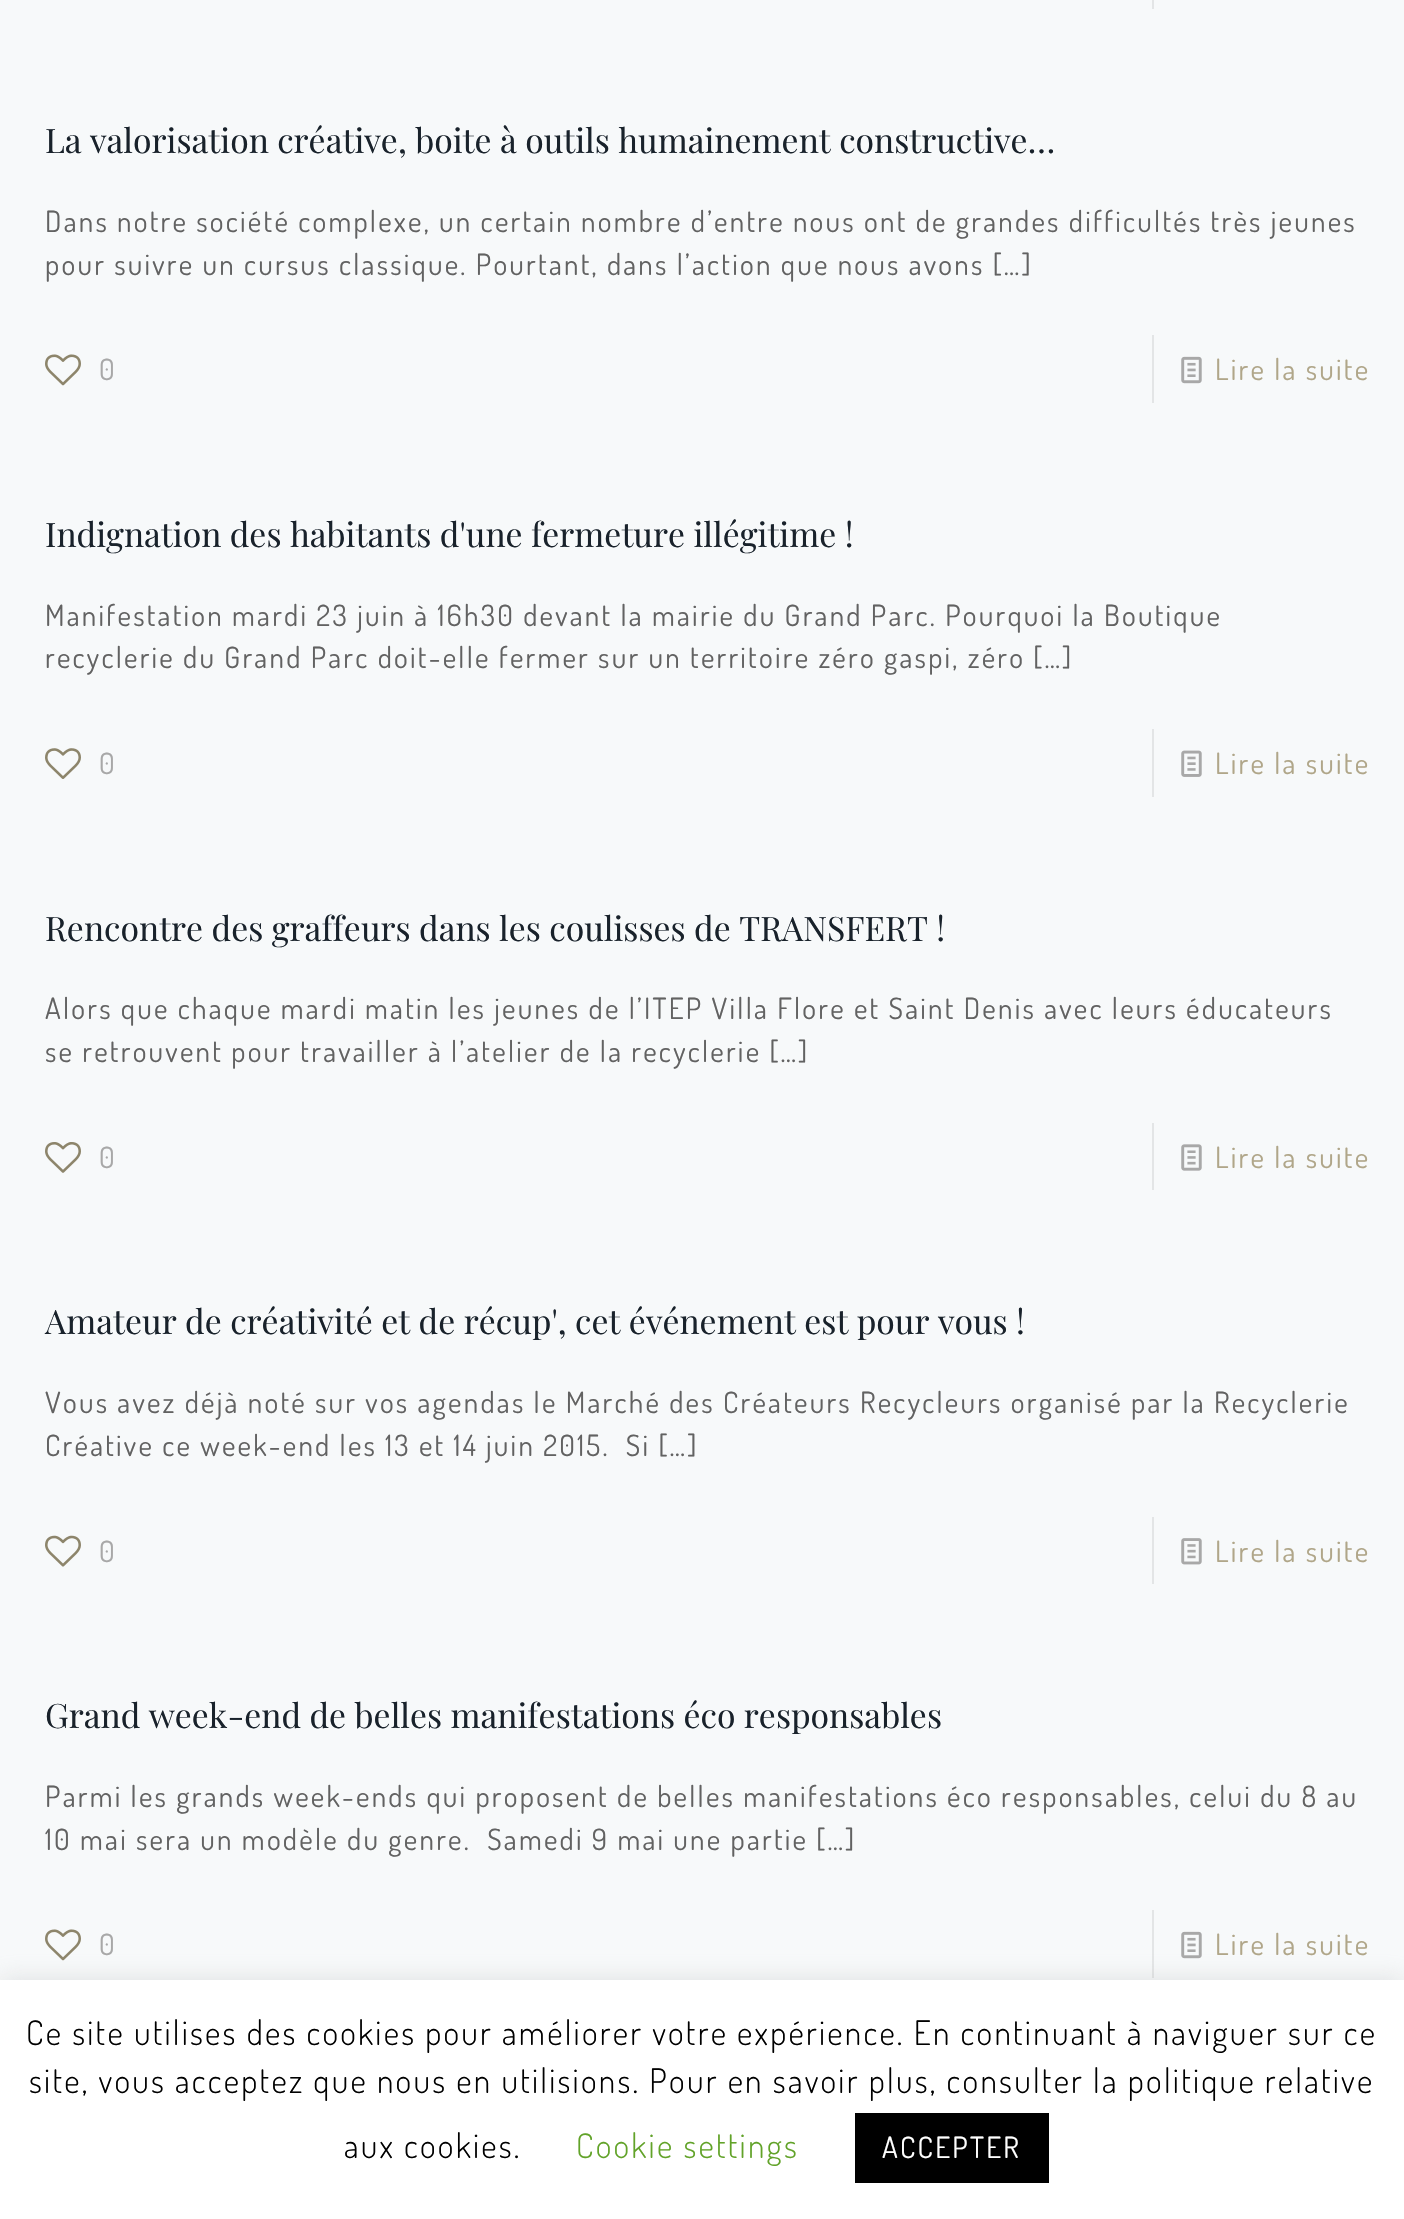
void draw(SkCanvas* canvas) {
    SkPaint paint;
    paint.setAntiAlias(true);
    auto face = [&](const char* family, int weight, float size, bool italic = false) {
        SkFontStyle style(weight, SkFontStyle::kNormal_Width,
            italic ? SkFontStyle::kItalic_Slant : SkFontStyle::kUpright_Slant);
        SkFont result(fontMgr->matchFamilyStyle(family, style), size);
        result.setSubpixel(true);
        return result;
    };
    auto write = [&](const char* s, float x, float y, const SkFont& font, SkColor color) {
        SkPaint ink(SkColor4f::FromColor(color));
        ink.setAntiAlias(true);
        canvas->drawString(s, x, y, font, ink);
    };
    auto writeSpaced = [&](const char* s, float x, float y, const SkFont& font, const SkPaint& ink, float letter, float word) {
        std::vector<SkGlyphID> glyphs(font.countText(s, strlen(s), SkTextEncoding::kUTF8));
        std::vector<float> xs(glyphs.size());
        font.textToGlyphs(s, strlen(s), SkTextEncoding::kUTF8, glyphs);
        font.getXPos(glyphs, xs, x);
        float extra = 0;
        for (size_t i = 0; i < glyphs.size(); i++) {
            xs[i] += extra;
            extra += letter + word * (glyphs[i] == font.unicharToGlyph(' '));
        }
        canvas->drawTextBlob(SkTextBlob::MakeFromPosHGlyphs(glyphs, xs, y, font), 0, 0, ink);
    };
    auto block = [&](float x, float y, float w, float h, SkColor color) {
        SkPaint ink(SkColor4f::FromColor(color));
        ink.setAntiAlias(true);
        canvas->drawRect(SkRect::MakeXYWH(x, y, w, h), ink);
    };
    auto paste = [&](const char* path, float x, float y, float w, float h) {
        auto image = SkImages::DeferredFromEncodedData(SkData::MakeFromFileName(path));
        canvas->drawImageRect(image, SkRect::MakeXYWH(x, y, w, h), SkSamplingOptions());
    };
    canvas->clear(SkColorSetRGB(247, 249, 250));
    block(1152, 0, 2, 9, SkColorSetRGB(227, 229, 230));
    auto kFont1 = face("Playfair Display", 400, 33.75f);
    write("La valorisation créative, boite à outils humainement constructive…", 45, 153, kFont1, SkColorSetRGB(25, 34, 43));
    auto kFont2 = face("Dosis", 400, 29.25f);
    paint.setColor(SkColorSetRGB(98, 98, 98));
    writeSpaced("Dans notre société complexe, un certain nombre d’entre nous ont de grandes difficultés très jeunes", 45, 232, kFont2, paint, 2.25f, 0);
    writeSpaced("pour suivre un cursus classique. Pourtant, dans l’action que nous avons […]", 45, 275, kFont2, paint, 2.25f, 0);
    paste("pic1.png", 45, 354, 36, 32);
    paint.setColor(SkColorSetRGB(168, 168, 168));
    writeSpaced("0", 99, 380, kFont2, paint, 2.25f, 0);
    block(1152, 335, 2, 68, SkColorSetRGB(227, 229, 230));
    paste("pic2.png", 1181, 356, 21, 28);
    paint.setColor(SkColorSetRGB(176, 166, 137));
    writeSpaced("Lire la suite", 1215, 380, kFont2, paint, 2.25f, 0);
    write("Indignation des habitants d'une fermeture illégitime !", 45, 547, kFont1, SkColorSetRGB(25, 34, 43));
    paint.setColor(SkColorSetRGB(98, 98, 98));
    writeSpaced("Manifestation mardi 23 juin à 16h30 devant la mairie du Grand Parc. Pourquoi la Boutique", 45, 626, kFont2, paint, 2.25f, 0);
    writeSpaced("recyclerie du Grand Parc doit-elle fermer sur un territoire zéro gaspi, zéro […]", 45, 668, kFont2, paint, 2.25f, 0);
    paste("pic3.png", 45, 748, 36, 31);
    paint.setColor(SkColorSetRGB(168, 168, 168));
    writeSpaced("0", 99, 774, kFont2, paint, 2.25f, 0);
    block(1152, 729, 2, 68, SkColorSetRGB(227, 229, 230));
    paste("pic4.png", 1181, 750, 21, 27);
    paint.setColor(SkColorSetRGB(176, 166, 137));
    writeSpaced("Lire la suite", 1215, 774, kFont2, paint, 2.25f, 0);
    write("Rencontre des graffeurs dans les coulisses de TRANSFERT !", 45, 941, kFont1, SkColorSetRGB(25, 34, 43));
    paint.setColor(SkColorSetRGB(98, 98, 98));
    writeSpaced("Alors que chaque mardi matin les jeunes de l’ITEP Villa Flore et Saint Denis avec leurs éducateurs", 45, 1019, kFont2, paint, 2.25f, 0);
    writeSpaced("se retrouvent pour travailler à l’atelier de la recyclerie […]", 45, 1062, kFont2, paint, 2.25f, 0);
    paste("pic5.png", 45, 1142, 36, 31);
    paint.setColor(SkColorSetRGB(168, 168, 168));
    writeSpaced("0", 99, 1168, kFont2, paint, 2.25f, 0);
    block(1152, 1123, 2, 67, SkColorSetRGB(227, 229, 230));
    paste("pic6.png", 1181, 1144, 21, 27);
    paint.setColor(SkColorSetRGB(176, 166, 137));
    writeSpaced("Lire la suite", 1215, 1168, kFont2, paint, 2.25f, 0);
    write("Amateur de créativité et de récup', cet événement est pour vous !", 45, 1334, kFont1, SkColorSetRGB(25, 34, 43));
    paint.setColor(SkColorSetRGB(98, 98, 98));
    writeSpaced("Vous avez déjà noté sur vos agendas le Marché des Créateurs Recycleurs organisé par la Recyclerie", 45, 1413, kFont2, paint, 2.25f, 0);
    writeSpaced("Créative ce week-end les 13 et 14 juin 2015.  Si […]", 45, 1456, kFont2, paint, 2.25f, 0);
    paste("pic7.png", 45, 1535, 36, 32);
    paint.setColor(SkColorSetRGB(168, 168, 168));
    writeSpaced("0", 99, 1562, kFont2, paint, 2.25f, 0);
    block(1152, 1517, 2, 67, SkColorSetRGB(227, 229, 230));
    paste("pic8.png", 1181, 1538, 21, 27);
    paint.setColor(SkColorSetRGB(176, 166, 137));
    writeSpaced("Lire la suite", 1215, 1562, kFont2, paint, 2.25f, 0);
    write("Grand week-end de belles manifestations éco responsables", 45, 1728, kFont1, SkColorSetRGB(25, 34, 43));
    paint.setColor(SkColorSetRGB(98, 98, 98));
    writeSpaced("Parmi les grands week-ends qui proposent de belles manifestations éco responsables, celui du 8 au", 45, 1807, kFont2, paint, 2.25f, 0);
    writeSpaced("10 mai sera un modèle du genre.  Samedi 9 mai une partie […]", 45, 1850, kFont2, paint, 2.25f, 0);
    paste("pic1.png", 45, 1929, 36, 32);
    paint.setColor(SkColorSetRGB(168, 168, 168));
    writeSpaced("0", 99, 1955, kFont2, paint, 2.25f, 0);
    block(1152, 1910, 2, 68, SkColorSetRGB(227, 229, 230));
    paste("pic2.png", 1181, 1931, 21, 28);
    paint.setColor(SkColorSetRGB(176, 166, 137));
    writeSpaced("Lire la suite", 1215, 1955, kFont2, paint, 2.25f, 0);
    paint.setColor(SkColorSetARGB(77, 172, 171, 171));
    paint.setMaskFilter(SkMaskFilter::MakeBlur(kNormal_SkBlurStyle, 11));
    canvas->drawRect(SkRect::MakeXYWH(0, 1978, 1404, 241), paint);
    paint.setMaskFilter(nullptr);
    block(0, 1980, 1404, 239, SK_ColorWHITE);
    auto kFont3 = face("Dosis", 300, 33.75f);
    paint.setColor(SK_ColorBLACK);
    writeSpaced("Ce site utilises des cookies pour améliorer votre expérience. En continuant à naviguer sur ce", 26, 2045, kFont3, paint, 2.25f, 0);
    writeSpaced("site, vous acceptez que nous en utilisions. Pour en savoir plus, consulter la politique relative", 29, 2093, kFont3, paint, 2.25f, 0);
    writeSpaced("aux cookies.", 344, 2158, kFont3, paint, 2.25f, 0);
    paint.setColor(SkColorSetRGB(98, 163, 41));
    writeSpaced("Cookie settings", 576, 2158, kFont3, paint, 2.25f, 0);
    block(855, 2113, 194, 70, SK_ColorBLACK);
    paint.setColor(SK_ColorWHITE);
    writeSpaced("ACCEPTER", 882, 2158, kFont2, paint, 2.25f, 0);
}
